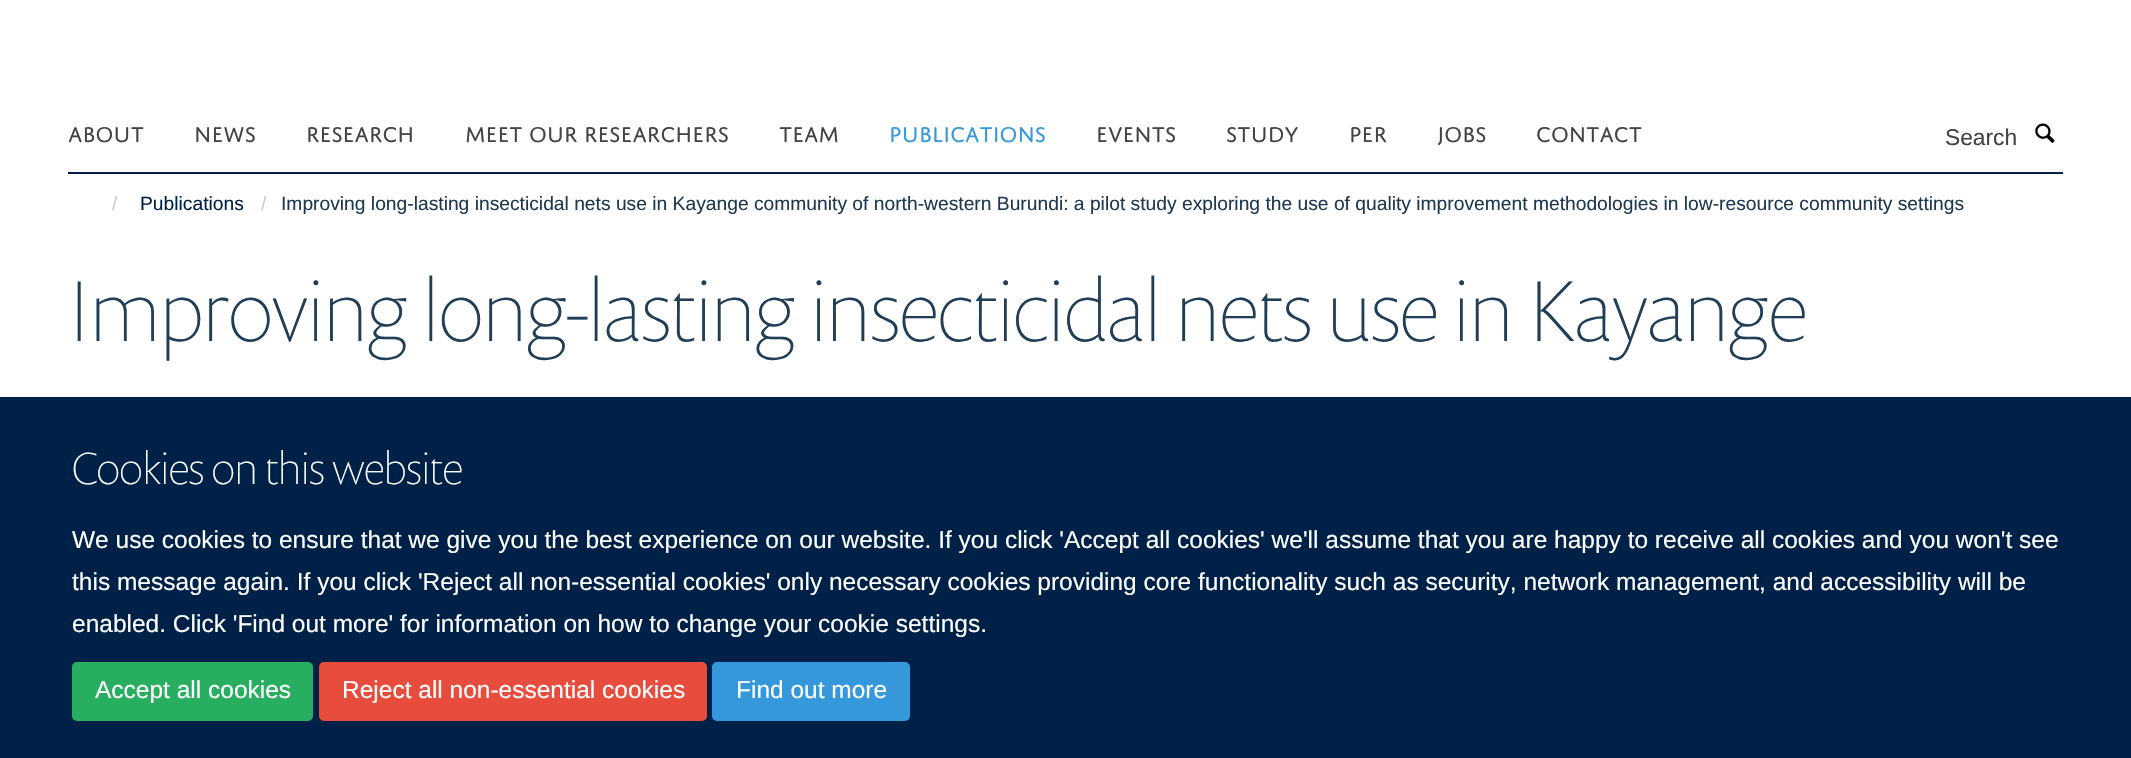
void draw(SkCanvas* canvas) {
    SkPaint paint;
    paint.setAntiAlias(true);
    auto face = [&](const char* family, int weight, float size, bool italic = false) {
        SkFontStyle style(weight, SkFontStyle::kNormal_Width,
            italic ? SkFontStyle::kItalic_Slant : SkFontStyle::kUpright_Slant);
        SkFont result(fontMgr->matchFamilyStyle(family, style), size);
        result.setSubpixel(true);
        return result;
    };
    auto write = [&](const char* s, float x, float y, const SkFont& font, SkColor color) {
        SkPaint ink(SkColor4f::FromColor(color));
        ink.setAntiAlias(true);
        canvas->drawString(s, x, y, font, ink);
    };
    auto block = [&](float x, float y, float w, float h, SkColor color) {
        SkPaint ink(SkColor4f::FromColor(color));
        ink.setAntiAlias(true);
        canvas->drawRect(SkRect::MakeXYWH(x, y, w, h), ink);
    };
    auto paste = [&](const char* path, float x, float y, float w, float h) {
        auto image = SkImages::DeferredFromEncodedData(SkData::MakeFromFileName(path));
        canvas->drawImageRect(image, SkRect::MakeXYWH(x, y, w, h), SkSamplingOptions());
    };
    canvas->clear(SK_ColorWHITE);
    block(68, 172, 1995, 2, SkColorSetRGB(0, 33, 71));
    auto kFont1 = face("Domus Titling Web", 400, 22.75f);
    write("ABOUT", 68, 142, kFont1, SkColorSetRGB(68, 68, 68));
    write("NEWS", 194, 142, kFont1, SkColorSetRGB(68, 68, 68));
    write("RESEARCH", 306, 142, kFont1, SkColorSetRGB(68, 68, 68));
    write("MEET OUR RESEARCHERS", 465, 142, kFont1, SkColorSetRGB(68, 68, 68));
    write("TEAM", 779, 142, kFont1, SkColorSetRGB(68, 68, 68));
    write("PUBLICATIONS", 889, 142, kFont1, SkColorSetRGB(52, 152, 219));
    write("EVENTS", 1096, 142, kFont1, SkColorSetRGB(68, 68, 68));
    write("STUDY", 1226, 142, kFont1, SkColorSetRGB(68, 68, 68));
    write("PER", 1349, 142, kFont1, SkColorSetRGB(68, 68, 68));
    write("JOBS", 1437, 142, kFont1, SkColorSetRGB(68, 68, 68));
    write("CONTACT", 1536, 142, kFont1, SkColorSetRGB(68, 68, 68));
    auto kFont2 = face("Liberation Sans", 400, 22.75f);
    write("Search", 1945, 145, kFont2, SkColorSetRGB(68, 68, 68));
    paste("pic1.png", 2035, 123, 20, 20);
    auto kFont3 = face("Liberation Sans", 400, 19.25f);
    write("/", 112, 210, kFont3, SkColorSetRGB(204, 204, 204));
    write("Publications", 140, 210, kFont3, SkColorSetRGB(0, 33, 71));
    write("/", 261, 210, kFont3, SkColorSetRGB(204, 204, 204));
    write("Improving long-lasting insecticidal nets use in Kayange community of north-western Burundi: a pilot study exploring the use of quality improvement methodologies in low-resource community settings", 281, 210, kFont3, SkColorSetRGB(29, 56, 80));
    auto kFont4 = face("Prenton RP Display", 100, 87.5f);
    write("Improving long-lasting insecticidal nets use in Kayange", 68, 341, kFont4, SkColorSetRGB(32, 62, 88));
    block(0, 397, 2131, 361, SkColorSetRGB(0, 33, 71));
    auto kFont5 = face("Prenton RP Display", 100, 45.5f);
    write("Cookies on this website", 72, 484, kFont5, SK_ColorWHITE);
    auto kFont6 = face("Liberation Sans", 400, 24.5f);
    write("We use cookies to ensure that we give you the best experience on our website. If you click 'Accept all cookies' we'll assume that you are happy to receive all cookies and you won't see", 72, 548, kFont6, SK_ColorWHITE);
    write("this message again. If you click 'Reject all non-essential cookies' only necessary cookies providing core functionality such as security, network management, and accessibility will be", 72, 590, kFont6, SK_ColorWHITE);
    write("enabled. Click 'Find out more' for information on how to change your cookie settings.", 72, 632, kFont6, SK_ColorWHITE);
    paint.setColor(SkColorSetRGB(39, 174, 96));
    canvas->drawRoundRect(SkRect::MakeXYWH(73, 663, 239, 57), 4, 4, paint);
    paint.setStyle(SkPaint::kStroke_Style);
    paint.setStrokeWidth(2);
    canvas->drawRoundRect(SkRect::MakeXYWH(73, 663, 239, 57), 4, 4, paint);
    write("Accept all cookies", 95, 698, kFont6, SK_ColorWHITE);
    paint.setStyle(SkPaint::kFill_Style);
    paint.setColor(SkColorSetRGB(231, 76, 60));
    canvas->drawRoundRect(SkRect::MakeXYWH(320, 663, 386, 57), 4, 4, paint);
    paint.setStyle(SkPaint::kStroke_Style);
    canvas->drawRoundRect(SkRect::MakeXYWH(320, 663, 386, 57), 4, 4, paint);
    write("Reject all non-essential cookies", 342, 698, kFont6, SK_ColorWHITE);
    paint.setStyle(SkPaint::kFill_Style);
    paint.setColor(SkColorSetRGB(52, 152, 219));
    canvas->drawRoundRect(SkRect::MakeXYWH(713, 663, 196, 57), 4, 4, paint);
    paint.setStyle(SkPaint::kStroke_Style);
    canvas->drawRoundRect(SkRect::MakeXYWH(713, 663, 196, 57), 4, 4, paint);
    write("Find out more", 736, 698, kFont6, SK_ColorWHITE);
}
